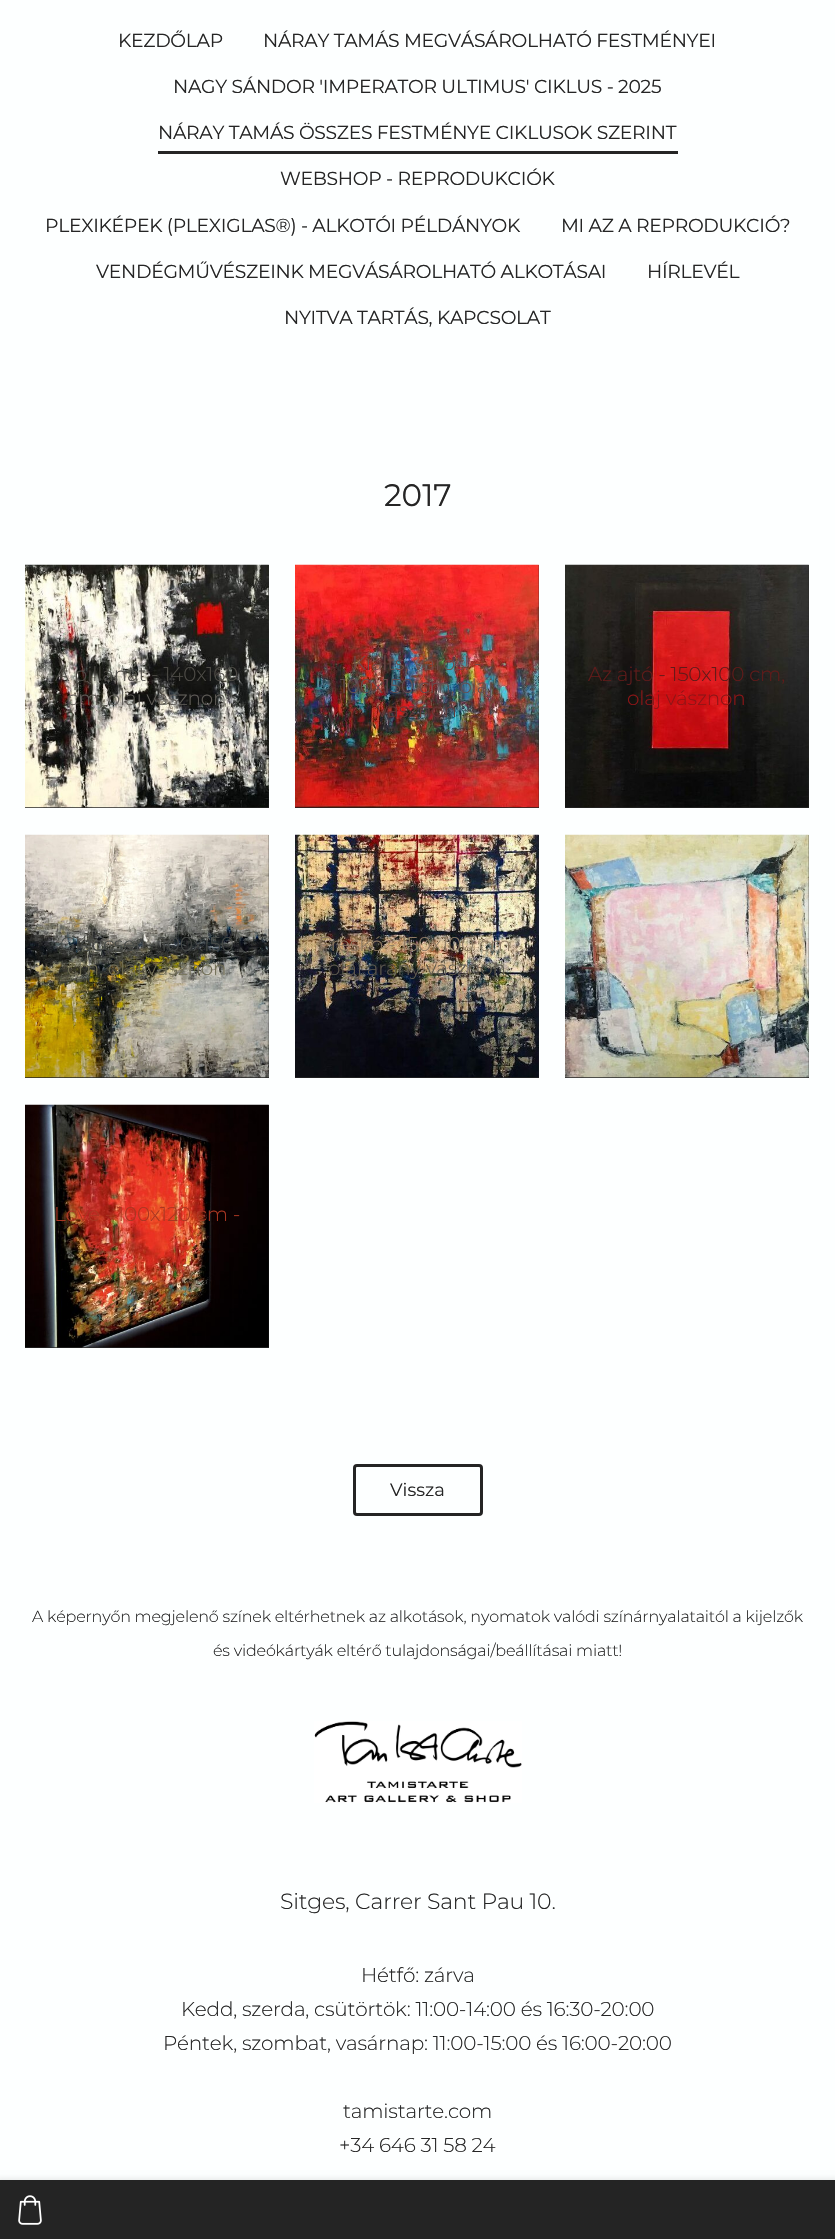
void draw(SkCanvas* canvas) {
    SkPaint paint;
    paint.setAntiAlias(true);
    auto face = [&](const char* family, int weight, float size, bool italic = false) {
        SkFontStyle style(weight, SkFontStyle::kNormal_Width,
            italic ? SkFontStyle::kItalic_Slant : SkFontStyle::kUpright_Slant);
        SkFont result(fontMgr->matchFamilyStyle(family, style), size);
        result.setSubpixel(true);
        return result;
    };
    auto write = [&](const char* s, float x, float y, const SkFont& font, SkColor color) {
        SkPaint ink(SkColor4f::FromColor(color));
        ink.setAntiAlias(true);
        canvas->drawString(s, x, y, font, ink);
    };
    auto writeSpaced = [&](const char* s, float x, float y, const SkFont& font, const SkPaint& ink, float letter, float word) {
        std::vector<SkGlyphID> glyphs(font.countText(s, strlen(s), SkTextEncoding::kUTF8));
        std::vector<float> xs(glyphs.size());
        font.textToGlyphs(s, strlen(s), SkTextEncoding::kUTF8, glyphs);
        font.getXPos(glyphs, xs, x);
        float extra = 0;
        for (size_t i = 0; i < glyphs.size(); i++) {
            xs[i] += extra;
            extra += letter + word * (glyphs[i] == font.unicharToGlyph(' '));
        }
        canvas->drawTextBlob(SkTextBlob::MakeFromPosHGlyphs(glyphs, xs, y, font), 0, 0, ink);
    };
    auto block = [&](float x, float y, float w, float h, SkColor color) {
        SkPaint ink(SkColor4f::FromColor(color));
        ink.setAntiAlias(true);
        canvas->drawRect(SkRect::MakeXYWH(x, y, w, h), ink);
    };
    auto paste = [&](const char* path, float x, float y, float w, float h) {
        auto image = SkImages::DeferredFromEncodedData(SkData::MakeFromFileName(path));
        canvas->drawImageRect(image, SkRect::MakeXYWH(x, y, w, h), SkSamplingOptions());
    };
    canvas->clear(SkColorSetRGB(253, 255, 255));
    auto kFont1 = face("Montserrat", 400, 18.75f);
    paint.setColor(SkColorSetRGB(37, 37, 37));
    writeSpaced("KEZDŐLAP", 118, 47, kFont1, paint, -0.3f, 0);
    writeSpaced("NÁRAY TAMÁS MEGVÁSÁROLHATÓ FESTMÉNYEI", 263, 47, kFont1, paint, -0.3f, 0);
    writeSpaced("NAGY SÁNDOR 'IMPERATOR ULTIMUS' CIKLUS - 2025", 173, 93, kFont1, paint, -0.3f, 0);
    block(158, 151, 520, 3, SkColorSetRGB(37, 37, 37));
    writeSpaced("NÁRAY TAMÁS ÖSSZES FESTMÉNYE CIKLUSOK SZERINT", 158, 139, kFont1, paint, -0.3f, 0);
    writeSpaced("WEBSHOP - REPRODUKCIÓK", 280, 185, kFont1, paint, -0.3f, 0);
    writeSpaced("PLEXIKÉPEK (PLEXIGLAS®) - ALKOTÓI PÉLDÁNYOK", 45, 232, kFont1, paint, -0.3f, 0);
    writeSpaced("MI AZ A REPRODUKCIÓ?", 561, 232, kFont1, paint, -0.3f, 0);
    writeSpaced("VENDÉGMŰVÉSZEINK MEGVÁSÁROLHATÓ ALKOTÁSAI", 96, 278, kFont1, paint, -0.3f, 0);
    writeSpaced("HÍRLEVÉL", 647, 278, kFont1, paint, -0.3f, 0);
    writeSpaced("NYITVA TARTÁS, KAPCSOLAT", 284, 324, kFont1, paint, -0.3f, 0);
    auto kFont2 = face("Montserrat", 400, 31);
    write("2017", 384, 506, kFont2, SkColorSetRGB(37, 37, 37));
    block(25, 565, 244, 243, SkColorSetRGB(37, 37, 37));
    paste("pic1.png", 25, 564, 244, 244);
    auto kFont3 = face("Montserrat", 300, 20);
    paint.setColor(SkColorSetRGB(77, 75, 70));
    writeSpaced("A pillanat - 140x160", 55, 681, kFont3, paint, -0.2f, 0);
    paint.setColor(SkColorSetRGB(94, 91, 86));
    writeSpaced("cm, olaj vásznon", 67, 705, kFont3, paint, -0.2f, 0);
    block(295, 565, 244, 243, SkColorSetRGB(37, 37, 37));
    paste("pic2.png", 295, 564, 244, 244);
    paint.setColor(SkColorSetRGB(110, 76, 72));
    writeSpaced("Kiálts, város! -", 352, 670, kFont3, paint, -0.2f, 0);
    paint.setColor(SkColorSetRGB(100, 78, 80));
    writeSpaced("100x150 cm, olaj", 340, 693, kFont3, paint, -0.2f, 0);
    paint.setColor(SkColorSetRGB(98, 56, 56));
    writeSpaced("vásznon", 377, 717, kFont3, paint, -0.2f, 0);
    block(565, 565, 244, 243, SkColorSetRGB(37, 37, 37));
    paste("pic3.png", 565, 564, 244, 244);
    paint.setColor(SkColorSetRGB(97, 26, 25));
    writeSpaced("Az ajtó - 150x100 cm,", 588, 681, kFont3, paint, -0.2f, 0);
    paint.setColor(SkColorSetRGB(142, 20, 22));
    writeSpaced("olaj vásznon", 627, 705, kFont3, paint, -0.2f, 0);
    block(25, 835, 244, 243, SkColorSetRGB(37, 37, 37));
    paste("pic4.png", 25, 834, 244, 244);
    paint.setColor(SkColorSetRGB(70, 73, 71));
    writeSpaced("Gleccser - 100x150", 60, 951, kFont3, paint, -0.2f, 0);
    paint.setColor(SkColorSetRGB(112, 109, 84));
    writeSpaced("cm, olaj vásznon", 67, 975, kFont3, paint, -0.2f, 0);
    block(295, 835, 244, 243, SkColorSetRGB(37, 37, 37));
    paste("pic5.png", 295, 834, 244, 244);
    paint.setColor(SkColorSetRGB(142, 123, 100));
    writeSpaced("Freskó - 150x100 cm,", 318, 951, kFont3, paint, -0.2f, 0);
    paint.setColor(SkColorSetRGB(94, 89, 78));
    writeSpaced("olaj arany vásznon", 328, 975, kFont3, paint, -0.2f, 0);
    block(565, 835, 244, 243, SkColorSetRGB(37, 37, 37));
    paste("pic6.png", 565, 834, 244, 244);
    block(25, 1105, 244, 243, SkColorSetRGB(37, 37, 37));
    paste("pic7.png", 25, 1104, 244, 244);
    paint.setColor(SkColorSetRGB(169, 54, 33));
    writeSpaced("Love - 100x120 cm -", 54, 1221, kFont3, paint, -0.2f, 0);
    paint.setStyle(SkPaint::kStroke_Style);
    paint.setStrokeWidth(3);
    paint.setColor(SkColorSetRGB(36, 36, 36));
    canvas->drawRoundRect(SkRect::MakeXYWH(354.5f, 1465.5f, 127, 49), 2.5f, 2.5f, paint);
    auto kFont4 = face("Montserrat", 400, 18);
    write("Vissza", 390, 1496, kFont4, SkColorSetRGB(37, 37, 37));
    paint.setStyle(SkPaint::kFill_Style);
    paint.setColor(SkColorSetARGB(26, 0, 0, 0));
    paint.setMaskFilter(SkMaskFilter::MakeBlur(kNormal_SkBlurStyle, 3));
    canvas->drawRect(SkRect::MakeXYWH(-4, 2179, 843, 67), paint);
    paint.setMaskFilter(nullptr);
    block(0, 2180, 835, 59, SkColorSetRGB(36, 36, 36));
    paste("pic8.png", 18, 2195, 24, 30);
    auto kFont5 = face("Montserrat", 300, 16);
    paint.setColor(SkColorSetRGB(37, 37, 37));
    writeSpaced("A képernyőn megjelenő színek eltérhetnek az alkotások, nyomatok valódi színárnyalataitól a kijelzők", 32, 1622, kFont5, paint, -0.2f, 0);
    writeSpaced("és videókártyák eltérő tulajdonságai/beállításai miatt!", 213, 1656, kFont5, paint, -0.2f, 0);
    paste("pic9.png", 314, 1721, 208, 82);
    auto kFont6 = face("Montserrat", 300, 22);
    writeSpaced("Sitges, Carrer Sant Pau 10.", 280, 1909, kFont6, paint, -0.2f, 0);
    writeSpaced("Hétfő: zárva", 361, 1982, kFont3, paint, -0.2f, 0);
    writeSpaced("Kedd, szerda, csütörtök: 11:00-14:00 és 16:30-20:00", 181, 2016, kFont3, paint, -0.2f, 0);
    writeSpaced("Péntek, szombat, vasárnap: 11:00-15:00 és 16:00-20:00", 163, 2050, kFont3, paint, -0.2f, 0);
    writeSpaced("tamistarte.com", 343, 2118, kFont3, paint, -0.2f, 0);
    writeSpaced("+34 646 31 58 24", 339, 2152, kFont3, paint, -0.2f, 0);
}
